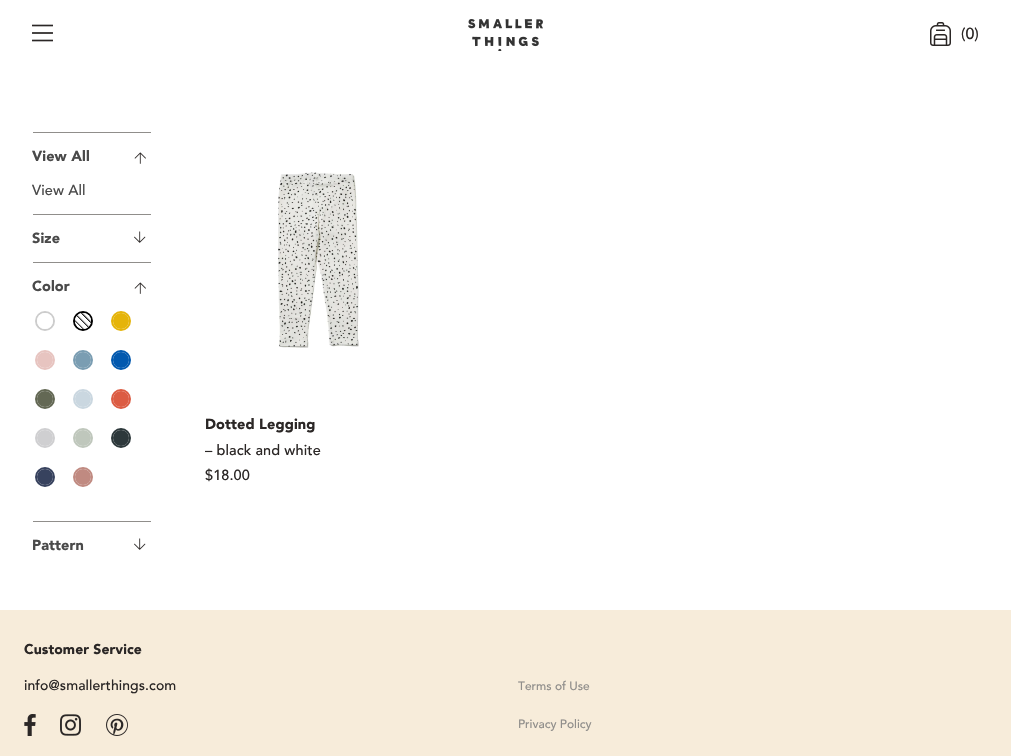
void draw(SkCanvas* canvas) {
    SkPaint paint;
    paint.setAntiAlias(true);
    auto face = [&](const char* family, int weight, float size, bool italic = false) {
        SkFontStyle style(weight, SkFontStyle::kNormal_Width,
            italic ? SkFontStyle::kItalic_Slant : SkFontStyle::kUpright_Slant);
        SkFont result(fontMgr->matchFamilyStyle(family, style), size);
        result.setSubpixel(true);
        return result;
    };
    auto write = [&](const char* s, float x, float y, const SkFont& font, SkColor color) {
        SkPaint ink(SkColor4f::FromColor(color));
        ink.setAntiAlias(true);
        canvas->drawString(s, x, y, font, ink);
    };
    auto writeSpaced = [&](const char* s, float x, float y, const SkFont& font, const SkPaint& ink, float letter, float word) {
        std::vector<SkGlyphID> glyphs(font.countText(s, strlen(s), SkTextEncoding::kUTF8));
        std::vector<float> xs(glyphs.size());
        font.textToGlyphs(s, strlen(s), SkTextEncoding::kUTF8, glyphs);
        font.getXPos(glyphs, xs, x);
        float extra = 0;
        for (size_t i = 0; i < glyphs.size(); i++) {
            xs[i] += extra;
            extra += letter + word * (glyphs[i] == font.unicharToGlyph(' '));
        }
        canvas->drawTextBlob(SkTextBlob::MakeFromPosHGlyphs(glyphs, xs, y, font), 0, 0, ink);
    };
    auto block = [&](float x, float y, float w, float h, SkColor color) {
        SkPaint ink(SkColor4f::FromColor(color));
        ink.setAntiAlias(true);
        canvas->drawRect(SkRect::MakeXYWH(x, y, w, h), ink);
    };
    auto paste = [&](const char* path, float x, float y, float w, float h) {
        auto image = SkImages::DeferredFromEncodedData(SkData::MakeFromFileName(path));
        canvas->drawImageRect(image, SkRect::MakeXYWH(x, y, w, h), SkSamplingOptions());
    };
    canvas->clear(SK_ColorWHITE);
    paste("pic1.png", 32, 24, 21, 18);
    paste("pic2.png", 468, 19, 75, 32);
    paste("pic3.png", 930, 22, 21, 24);
    auto kFont1 = face("Avenir", 500, 16);
    write("(0)", 961, 39, kFont1, SkColorSetRGB(43, 39, 38));
    block(33, 132, 118, 1, SkColorSetRGB(144, 142, 139));
    auto kFont2 = face("Avenir", 900, 14.5f);
    paint.setColor(SkColorSetRGB(74, 74, 74));
    writeSpaced("View All", 32, 161, kFont2, paint, 0.1f, 0);
    paste("pic4.png", 134, 152, 12, 12);
    auto kFont3 = face("Avenir", 500, 14.5f);
    writeSpaced("View All", 32, 195, kFont3, paint, 0.1f, 0);
    block(33, 214, 118, 1, SkColorSetRGB(144, 142, 139));
    writeSpaced("Size", 32, 243, kFont2, paint, 0.1f, 0);
    paste("pic5.png", 134, 231, 12, 12);
    block(33, 262, 118, 1, SkColorSetRGB(144, 142, 139));
    writeSpaced("Color", 32, 291, kFont2, paint, 0.1f, 0);
    paste("pic6.png", 134, 282, 12, 12);
    paint.setStyle(SkPaint::kStroke_Style);
    paint.setStrokeWidth(2);
    paint.setColor(SkColorSetRGB(204, 204, 204));
    canvas->drawCircle(45, 321, 9, paint);
    paint.setStyle(SkPaint::kFill_Style);
    paint.setColor(SK_ColorWHITE);
    canvas->drawCircle(45, 321, 8, paint);
    paint.setStyle(SkPaint::kStroke_Style);
    paint.setColor(SK_ColorBLACK);
    canvas->drawCircle(83, 321, 9, paint);
    paint.setStyle(SkPaint::kFill_Style);
    {
        const SkColor colors[] = {SK_ColorBLACK, SK_ColorWHITE, SK_ColorWHITE, SK_ColorBLACK, SK_ColorWHITE, SK_ColorWHITE, SK_ColorBLACK, SK_ColorWHITE, SK_ColorWHITE, SK_ColorBLACK, SK_ColorWHITE, SK_ColorWHITE, SK_ColorBLACK, SK_ColorWHITE, SK_ColorWHITE};
        const float stops[] = {0, 0.08f, 0.2f, 0.2f, 0.28f, 0.4f, 0.4f, 0.48f, 0.6f, 0.6f, 0.68f, 0.8f, 0.8f, 0.88f, 1};
        const SkPoint ends[] = {{75, 329}, {93, 311}};
        paint.setShader(SkGradientShader::MakeLinear(ends, colors, stops, 15, SkTileMode::kClamp));
        paint.setAlpha(255);
    }
    canvas->drawCircle(83, 321, 8, paint);
    paint.setStyle(SkPaint::kStroke_Style);
    paint.setShader(nullptr);
    paint.setColor(SkColorSetRGB(229, 180, 9));
    canvas->drawCircle(121, 321, 9, paint);
    paint.setStyle(SkPaint::kFill_Style);
    canvas->drawCircle(121, 321, 8, paint);
    paint.setStyle(SkPaint::kStroke_Style);
    paint.setColor(SkColorSetRGB(231, 196, 192));
    canvas->drawCircle(45, 360, 9, paint);
    paint.setStyle(SkPaint::kFill_Style);
    canvas->drawCircle(45, 360, 8, paint);
    paint.setStyle(SkPaint::kStroke_Style);
    paint.setColor(SkColorSetRGB(122, 157, 178));
    canvas->drawCircle(83, 360, 9, paint);
    paint.setStyle(SkPaint::kFill_Style);
    canvas->drawCircle(83, 360, 8, paint);
    paint.setStyle(SkPaint::kStroke_Style);
    paint.setColor(SkColorSetRGB(2, 89, 175));
    canvas->drawCircle(121, 360, 9, paint);
    paint.setStyle(SkPaint::kFill_Style);
    canvas->drawCircle(121, 360, 8, paint);
    paint.setStyle(SkPaint::kStroke_Style);
    paint.setColor(SkColorSetRGB(99, 104, 84));
    canvas->drawCircle(45, 399, 9, paint);
    paint.setStyle(SkPaint::kFill_Style);
    canvas->drawCircle(45, 399, 8, paint);
    paint.setStyle(SkPaint::kStroke_Style);
    paint.setColor(SkColorSetRGB(202, 215, 224));
    canvas->drawCircle(83, 399, 9, paint);
    paint.setStyle(SkPaint::kFill_Style);
    canvas->drawCircle(83, 399, 8, paint);
    paint.setStyle(SkPaint::kStroke_Style);
    paint.setColor(SkColorSetRGB(220, 92, 67));
    canvas->drawCircle(121, 399, 9, paint);
    paint.setStyle(SkPaint::kFill_Style);
    canvas->drawCircle(121, 399, 8, paint);
    paint.setStyle(SkPaint::kStroke_Style);
    paint.setColor(SkColorSetRGB(207, 207, 209));
    canvas->drawCircle(45, 438, 9, paint);
    paint.setStyle(SkPaint::kFill_Style);
    canvas->drawCircle(45, 438, 8, paint);
    paint.setStyle(SkPaint::kStroke_Style);
    paint.setColor(SkColorSetRGB(191, 199, 188));
    canvas->drawCircle(83, 438, 9, paint);
    paint.setStyle(SkPaint::kFill_Style);
    canvas->drawCircle(83, 438, 8, paint);
    paint.setStyle(SkPaint::kStroke_Style);
    paint.setColor(SkColorSetRGB(45, 56, 59));
    canvas->drawCircle(121, 438, 9, paint);
    paint.setStyle(SkPaint::kFill_Style);
    canvas->drawCircle(121, 438, 8, paint);
    paint.setStyle(SkPaint::kStroke_Style);
    paint.setColor(SkColorSetRGB(55, 66, 94));
    canvas->drawCircle(45, 477, 9, paint);
    paint.setStyle(SkPaint::kFill_Style);
    canvas->drawCircle(45, 477, 8, paint);
    paint.setStyle(SkPaint::kStroke_Style);
    paint.setColor(SkColorSetRGB(192, 138, 129));
    canvas->drawCircle(83, 477, 9, paint);
    paint.setStyle(SkPaint::kFill_Style);
    canvas->drawCircle(83, 477, 8, paint);
    block(33, 521, 118, 1, SkColorSetRGB(144, 142, 139));
    paint.setColor(SkColorSetRGB(74, 74, 74));
    writeSpaced("Pattern", 32, 550, kFont2, paint, 0.1f, 0);
    paste("pic5.png", 134, 538, 12, 12);
    paste("pic7.png", 278, 172, 81, 176);
    paint.setColor(SkColorSetRGB(43, 39, 38));
    writeSpaced("Dotted Legging", 205, 429, kFont2, paint, 0.1f, 0);
    writeSpaced("– black and white", 205, 455, kFont3, paint, 0.1f, 0);
    writeSpaced("$18.00", 205, 480, kFont3, paint, 0.1f, 0);
    block(0, 610, 1011, 146, SkColorSetRGB(247, 236, 218));
    auto kFont4 = face("Avenir", 900, 14);
    writeSpaced("Customer Service", 24, 654, kFont4, paint, 0.1f, 0);
    auto kFont5 = face("Avenir", 500, 14);
    writeSpaced("info@smallerthings.com", 24, 690, kFont5, paint, 0.1f, 0);
    paste("pic8.png", 24, 714, 12, 22);
    paste("pic9.png", 60, 714, 21, 22);
    paste("pic10.png", 106, 714, 22, 22);
    auto kFont6 = face("Avenir", 500, 12);
    write("Terms of Use", 518, 690, kFont6, SkColorSetRGB(144, 142, 139));
    write("Privacy Policy", 518, 728, kFont6, SkColorSetRGB(144, 142, 139));
}
